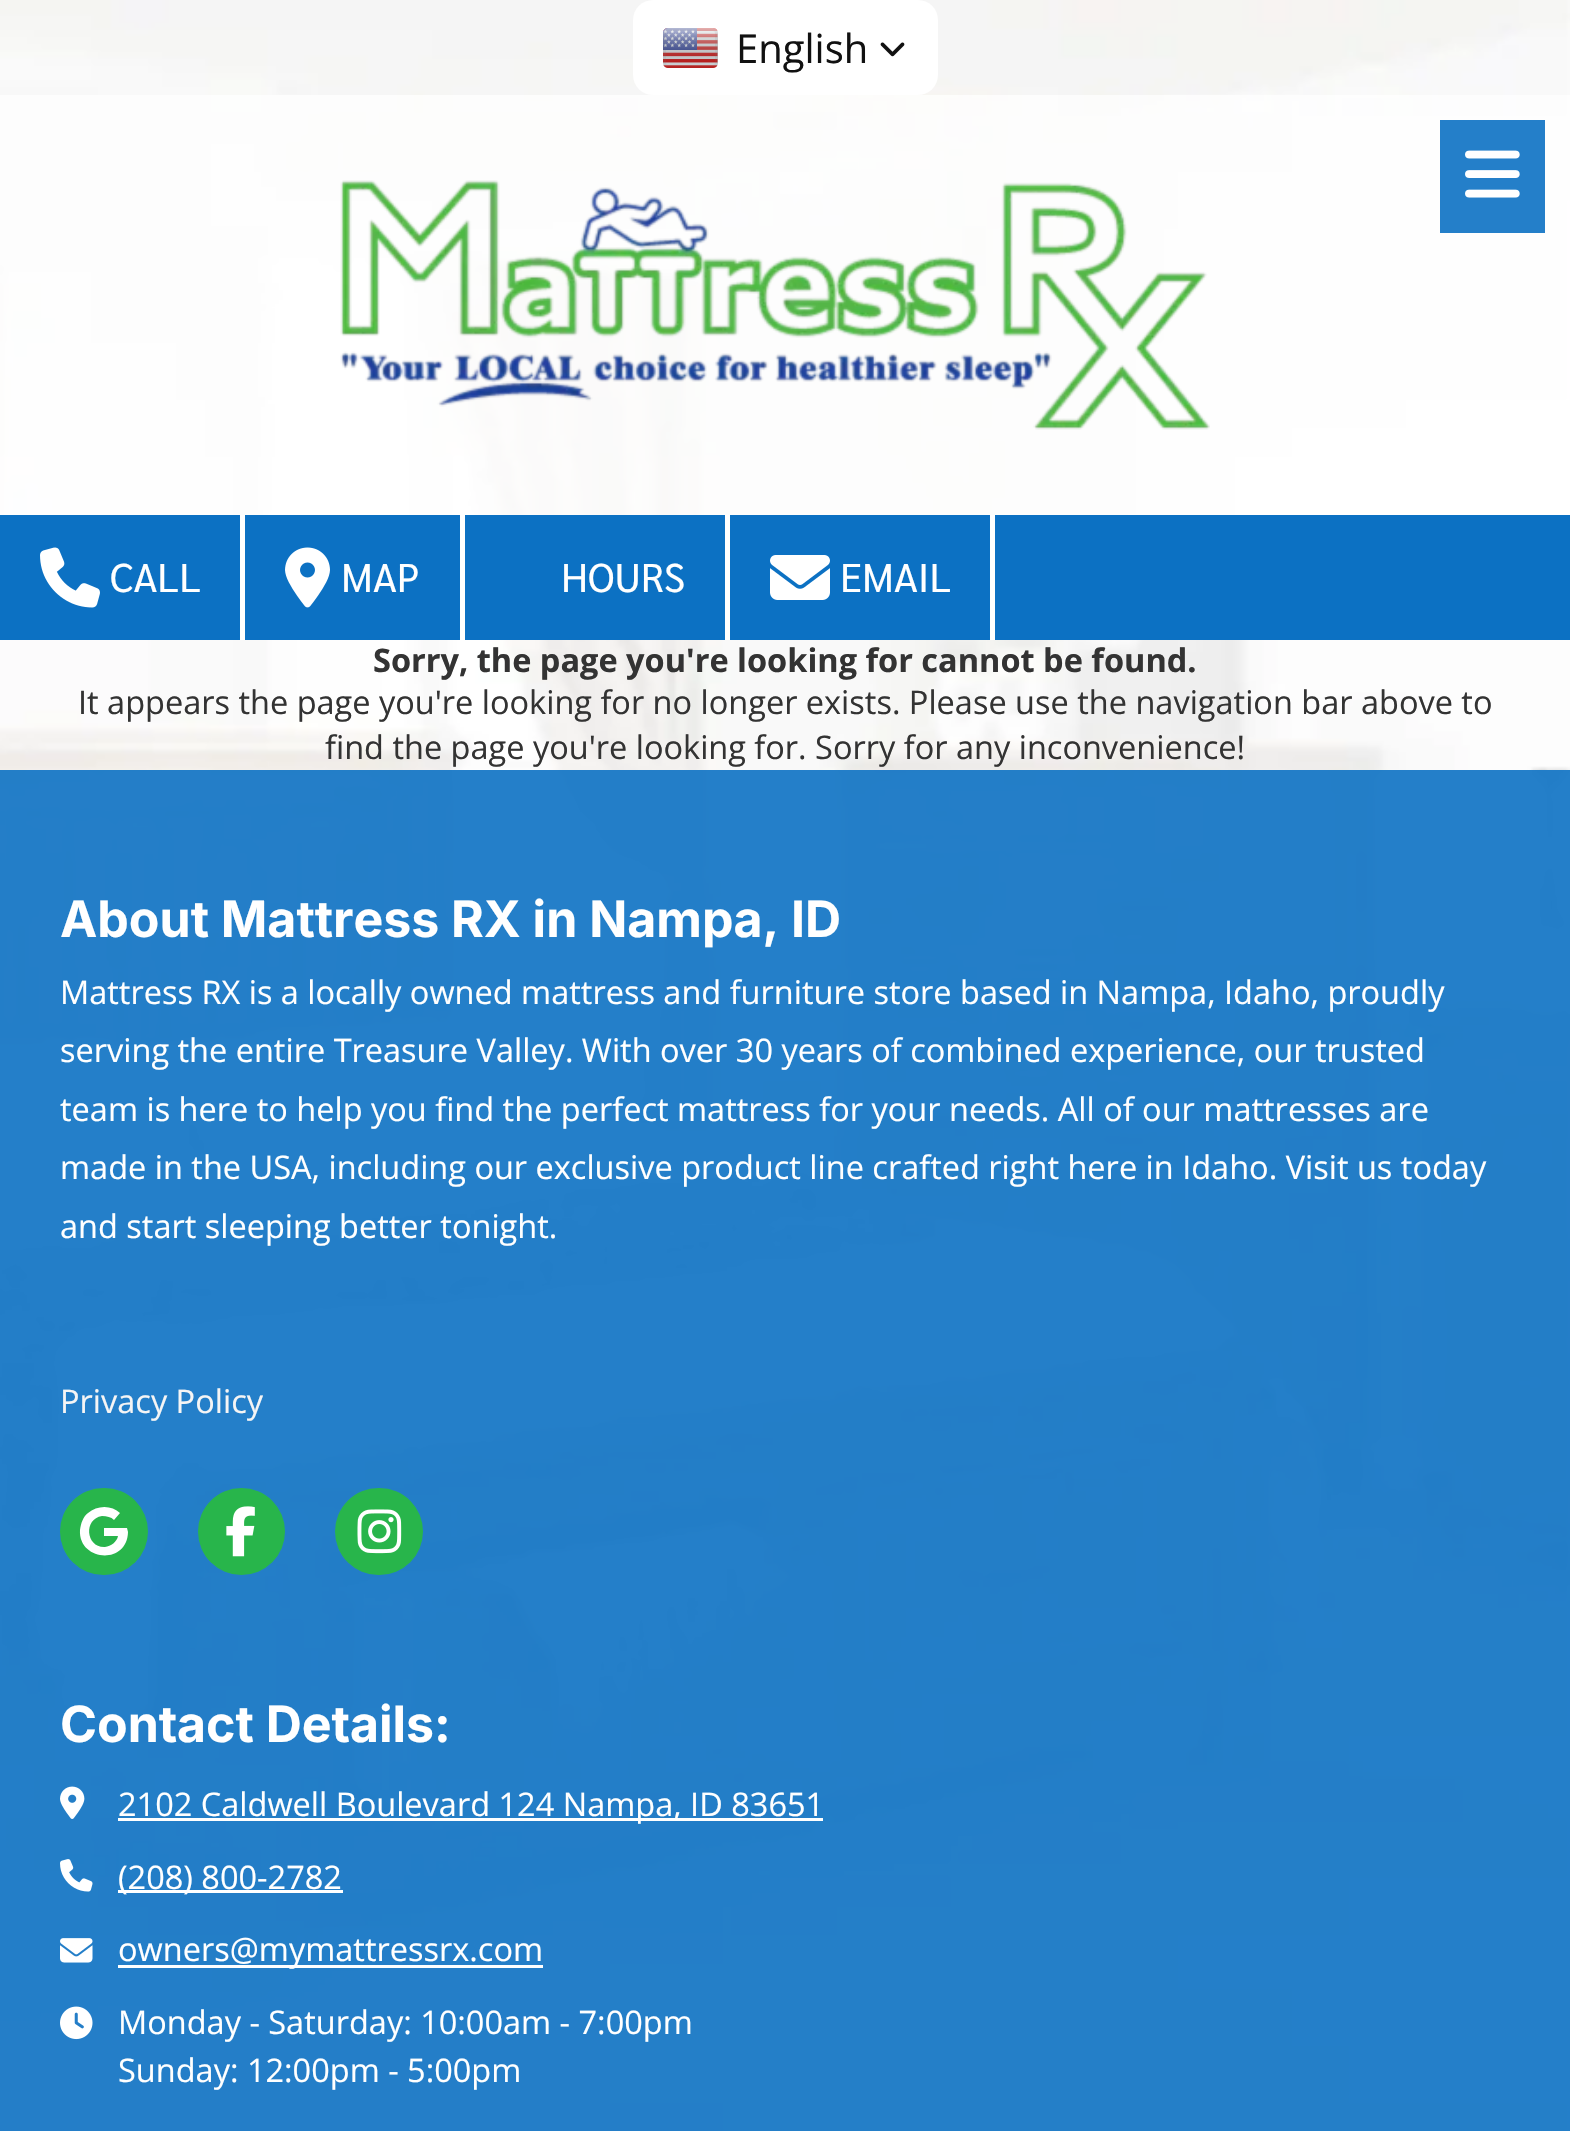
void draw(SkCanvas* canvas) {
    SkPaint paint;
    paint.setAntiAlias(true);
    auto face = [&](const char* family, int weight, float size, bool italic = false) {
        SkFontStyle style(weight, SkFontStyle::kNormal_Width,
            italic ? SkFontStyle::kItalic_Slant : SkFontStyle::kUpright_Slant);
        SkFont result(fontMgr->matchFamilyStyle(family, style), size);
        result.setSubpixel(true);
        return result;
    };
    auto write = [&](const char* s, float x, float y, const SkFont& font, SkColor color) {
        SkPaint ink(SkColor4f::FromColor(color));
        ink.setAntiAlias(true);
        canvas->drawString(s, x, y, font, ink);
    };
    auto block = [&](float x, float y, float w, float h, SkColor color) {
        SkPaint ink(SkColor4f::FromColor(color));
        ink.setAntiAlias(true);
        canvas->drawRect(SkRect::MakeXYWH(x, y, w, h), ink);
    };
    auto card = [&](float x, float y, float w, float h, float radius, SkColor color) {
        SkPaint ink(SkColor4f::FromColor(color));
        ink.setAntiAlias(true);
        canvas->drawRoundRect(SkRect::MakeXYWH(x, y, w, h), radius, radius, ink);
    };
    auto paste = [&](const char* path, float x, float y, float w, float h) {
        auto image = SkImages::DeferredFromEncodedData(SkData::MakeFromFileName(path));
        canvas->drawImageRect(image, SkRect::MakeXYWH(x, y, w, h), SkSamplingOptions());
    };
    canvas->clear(SK_ColorWHITE);
    paste("pic1.png", 0, 0, 1570, 2131);
    card(633, 0, 305, 95, 20, SK_ColorWHITE);
    paste("pic2.png", 663, 28, 55, 40);
    {
        const SkColor colors[] = {SkColorSetARGB(179, 255, 255, 255), SkColorSetARGB(38, 0, 0, 0)};
        const float stops[] = {0, 1};
        const SkPoint ends[] = {{690, 27}, {690, 68}};
        paint.setShader(SkGradientShader::MakeLinear(ends, colors, stops, 2, SkTileMode::kClamp));
        paint.setAlpha(255);
    }
    canvas->drawRoundRect(SkRect::MakeXYWH(663, 28, 55, 40), 5, 5, paint);
    paint.setStyle(SkPaint::kStroke_Style);
    paint.setStrokeWidth(3);
    paint.setShader(nullptr);
    paint.setColor(SkColorSetARGB(26, 118, 118, 118));
    canvas->drawRoundRect(SkRect::MakeXYWH(664.5f, 29.5f, 52, 37), 3.5f, 3.5f, paint);
    auto kFont1 = face("Open Sans", 400, 40);
    write("English", 736, 63, kFont1, SkColorSetRGB(17, 17, 17));
    paste("pic3.png", 880, 42, 25, 15);
    block(0, 95, 1570, 420, SkColorSetARGB(179, 255, 255, 255));
    paste("pic4.png", 340, 180, 870, 250);
    block(1440, 120, 105, 113, SkColorSetRGB(36, 127, 201));
    paste("pic5.png", 1465, 150, 55, 48);
    block(0, 515, 1570, 125, SkColorSetRGB(12, 113, 195));
    block(240, 515, 5, 125, SK_ColorWHITE);
    paste("pic6.png", 40, 547, 60, 61);
    auto kFont2 = face("Sarabun", 400, 40);
    write("CALL", 110, 592, kFont2, SK_ColorWHITE);
    block(460, 515, 5, 125, SK_ColorWHITE);
    paste("pic7.png", 285, 547, 45, 61);
    write("MAP", 341, 592, kFont2, SK_ColorWHITE);
    block(725, 515, 5, 125, SK_ColorWHITE);
    write("HOURS", 561, 592, kFont2, SK_ColorWHITE);
    block(990, 515, 5, 125, SK_ColorWHITE);
    paste("pic8.png", 770, 555, 60, 45);
    write("EMAIL", 840, 592, kFont2, SK_ColorWHITE);
    auto kFont3 = face("Open Sans", 700, 32.5f);
    write("Sorry, the page you're looking for cannot be found.", 373, 672, kFont3, SkColorSetRGB(51, 51, 51));
    auto kFont4 = face("Open Sans", 400, 32.5f);
    write("It appears the page you're looking for no longer exists. Please use the navigation bar above to", 78, 714, kFont4, SkColorSetRGB(51, 51, 51));
    write("find the page you're looking for. Sorry for any inconvenience!", 325, 759, kFont4, SkColorSetRGB(51, 51, 51));
    block(0, 770, 1570, 1361, SkColorSetARGB(230, 12, 113, 195));
    auto kFont5 = face("Inter", 700, 50);
    write("About Mattress RX in Nampa, ID", 60, 937, kFont5, SK_ColorWHITE);
    write("Mattress RX is a locally owned mattress and furniture store based in Nampa, Idaho, proudly", 60, 1004, kFont4, SK_ColorWHITE);
    write("serving the entire Treasure Valley. With over 30 years of combined experience, our trusted", 60, 1062, kFont4, SK_ColorWHITE);
    write("team is here to help you find the perfect mattress for your needs. All of our mattresses are", 60, 1121, kFont4, SK_ColorWHITE);
    write("made in the USA, including our exclusive product line crafted right here in Idaho. Visit us today", 60, 1179, kFont4, SK_ColorWHITE);
    write("and start sleeping better tonight.", 60, 1238, kFont4, SK_ColorWHITE);
    write("Privacy Policy", 60, 1413, kFont4, SkColorSetRGB(245, 245, 245));
    card(60, 1488, 88, 87, 43.5f, SkColorSetRGB(40, 181, 75));
    paint.setStyle(SkPaint::kFill_Style);
    paint.setColor(SK_ColorWHITE);
    canvas->drawPath(SkPathBuilder().moveTo(128, 1532).cubicTo(127, 1566, 78, 1561, 80, 1530).cubicTo(81, 1523, 83, 1517, 88, 1513).cubicTo(97, 1505, 112, 1505, 120, 1513).lineTo(114, 1520).cubicTo(111, 1517, 107, 1516, 102, 1516).cubicTo(83, 1519, 86, 1548, 105, 1547).cubicTo(111, 1546, 117, 1542, 118, 1536).lineTo(104, 1536).lineTo(104, 1528).lineTo(127, 1528).close().detach(), paint);
    paint.setColor(SkColorSetRGB(40, 181, 75));
    canvas->drawCircle(241.5f, 1531.5f, 43.5f, paint);
    paste("pic9.png", 226, 1506, 29, 51);
    card(335, 1488, 88, 87, 43.5f, SkColorSetRGB(40, 181, 75));
    paste("pic10.png", 357, 1509, 45, 45);
    write("Contact Details:", 60, 1742, kFont5, SK_ColorWHITE);
    paste("pic11.png", 60, 1786, 25, 33);
    block(118, 1818, 705, 3, SK_ColorWHITE);
    write("2102 Caldwell Boulevard 124 Nampa, ID 83651", 118, 1816, kFont4, SK_ColorWHITE);
    paste("pic12.png", 60, 1859, 33, 33);
    block(118, 1890, 225, 3, SK_ColorWHITE);
    write("(208) 800-2782", 118, 1889, kFont4, SK_ColorWHITE);
    paste("pic13.png", 60, 1938, 33, 25);
    block(118, 1965, 425, 3, SK_ColorWHITE);
    write("owners@mymattressrx.com", 118, 1961, kFont4, SK_ColorWHITE);
    paste("pic14.png", 60, 2006, 33, 34);
    write("Monday - Saturday: 10:00am - 7:00pm", 118, 2034, kFont4, SK_ColorWHITE);
    write("Sunday: 12:00pm - 5:00pm", 118, 2082, kFont4, SK_ColorWHITE);
}
